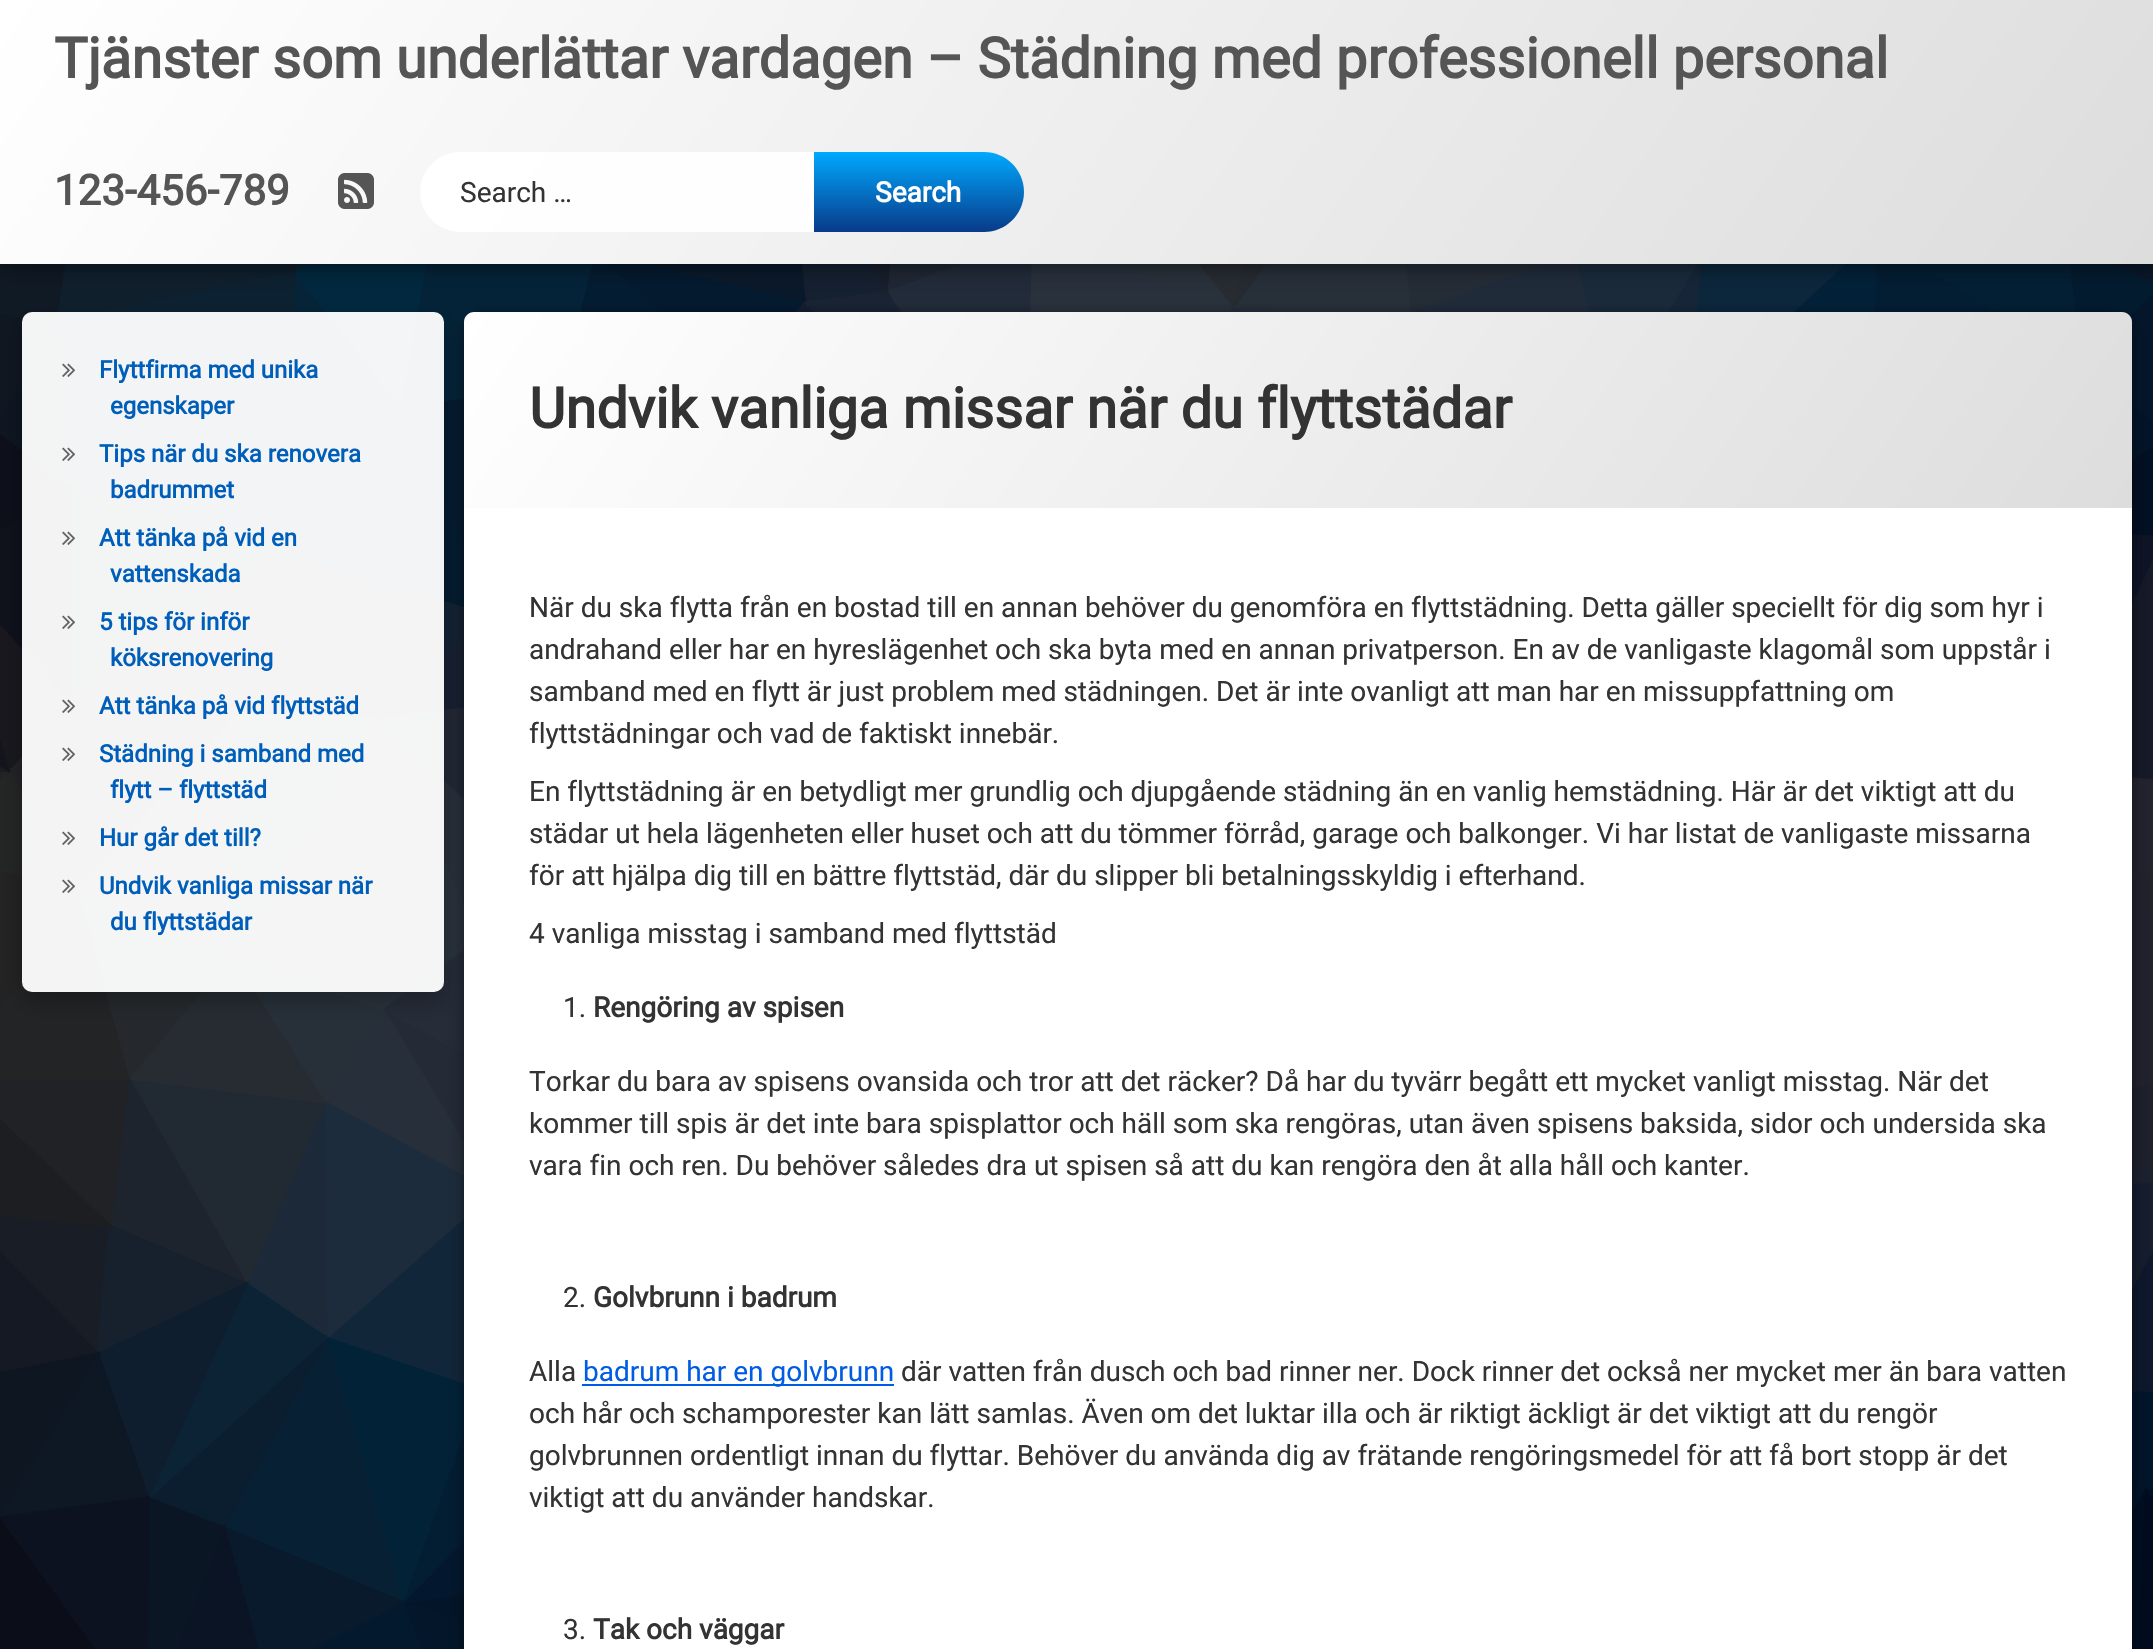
void draw(SkCanvas* canvas) {
    SkPaint paint;
    paint.setAntiAlias(true);
    auto face = [&](const char* family, int weight, float size, bool italic = false) {
        SkFontStyle style(weight, SkFontStyle::kNormal_Width,
            italic ? SkFontStyle::kItalic_Slant : SkFontStyle::kUpright_Slant);
        SkFont result(fontMgr->matchFamilyStyle(family, style), size);
        result.setSubpixel(true);
        return result;
    };
    auto write = [&](const char* s, float x, float y, const SkFont& font, SkColor color) {
        SkPaint ink(SkColor4f::FromColor(color));
        ink.setAntiAlias(true);
        canvas->drawString(s, x, y, font, ink);
    };
    auto block = [&](float x, float y, float w, float h, SkColor color) {
        SkPaint ink(SkColor4f::FromColor(color));
        ink.setAntiAlias(true);
        canvas->drawRect(SkRect::MakeXYWH(x, y, w, h), ink);
    };
    auto card = [&](float x, float y, float w, float h, float radius, SkColor color) {
        SkPaint ink(SkColor4f::FromColor(color));
        ink.setAntiAlias(true);
        canvas->drawRoundRect(SkRect::MakeXYWH(x, y, w, h), radius, radius, ink);
    };
    auto paste = [&](const char* path, float x, float y, float w, float h) {
        auto image = SkImages::DeferredFromEncodedData(SkData::MakeFromFileName(path));
        canvas->drawImageRect(image, SkRect::MakeXYWH(x, y, w, h), SkSamplingOptions());
    };
    canvas->clear(SK_ColorWHITE);
    paste("pic9.png", 0, 264, 2153, 1385);
    paint.setColor(SkColorSetARGB(77, 0, 0, 0));
    paint.setMaskFilter(SkMaskFilter::MakeBlur(kNormal_SkBlurStyle, 7));
    canvas->drawRect(SkRect::MakeXYWH(4, 4, 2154, 264), paint);
    paint.setMaskFilter(nullptr);
    paint.setColor(SkColorSetARGB(51, 0, 0, 0));
    paint.setMaskFilter(SkMaskFilter::MakeBlur(kNormal_SkBlurStyle, 15));
    canvas->drawRect(SkRect::MakeXYWH(0, 0, 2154, 264), paint);
    paint.setMaskFilter(nullptr);
    {
        const SkColor colors[] = {SK_ColorWHITE, SkColorSetRGB(221, 221, 221)};
        const float stops[] = {0, 1};
        const SkPoint ends[] = {{292, -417}, {1862, 681}};
        paint.setShader(SkGradientShader::MakeLinear(ends, colors, stops, 2, SkTileMode::kClamp));
        paint.setAlpha(255);
    }
    canvas->drawRect(SkRect::MakeXYWH(0, 0, 2153, 264), paint);
    auto kFont1 = face("Roboto", 700, 56);
    write("Tjänster som underlättar vardagen – Städning med professionell personal", 54, 78, kFont1, SkColorSetRGB(85, 85, 85));
    auto kFont2 = face("Roboto", 700, 42);
    write("123-456-789", 54, 205, kFont2, SkColorSetRGB(85, 85, 85));
    paste("pic1.png", 338, 173, 36, 36);
    card(420, 152, 600, 80, 40, SkColorSetARGB(230, 255, 255, 255));
    auto kFont3 = face("Roboto", 400, 28);
    write("Search …", 460, 202, kFont3, SkColorSetRGB(51, 51, 51));
    {
        const SkColor colors[] = {SkColorSetRGB(0, 169, 255), SkColorSetRGB(9, 58, 137)};
        const float stops[] = {0, 1};
        const SkPoint ends[] = {{919, 152}, {919, 232}};
        paint.setShader(SkGradientShader::MakeLinear(ends, colors, stops, 2, SkTileMode::kClamp));
        paint.setAlpha(255);
    }
    canvas->drawPath(SkPathBuilder().moveTo(814, 152).lineTo(984, 152).cubicTo(1006, 152, 1024, 170, 1024, 192).cubicTo(1024, 214, 1006, 232, 984, 232).lineTo(814, 232).close().detach(), paint);
    auto kFont4 = face("Roboto", 700, 28);
    write("Search", 875, 202, kFont4, SK_ColorWHITE);
    canvas->save();
    canvas->clipPath(SkPathBuilder(SkPathFillType::kEvenOdd).moveTo(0, 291).lineTo(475, 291).lineTo(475, 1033).lineTo(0, 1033).close().moveTo(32, 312).lineTo(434, 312).cubicTo(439.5f, 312, 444, 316.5f, 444, 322).lineTo(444, 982).cubicTo(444, 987.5f, 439.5f, 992, 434, 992).lineTo(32, 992).cubicTo(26.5f, 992, 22, 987.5f, 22, 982).lineTo(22, 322).cubicTo(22, 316.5f, 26.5f, 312, 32, 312).close().detach(), true);
    paint.setShader(nullptr);
    paint.setColor(SkColorSetARGB(64, 0, 0, 0));
    paint.setMaskFilter(SkMaskFilter::MakeBlur(kNormal_SkBlurStyle, 10));
    canvas->drawRoundRect(SkRect::MakeXYWH(22, 322, 422, 680), 10, 10, paint);
    paint.setMaskFilter(nullptr);
    canvas->restore();
    card(22, 312, 422, 680, 10, SkColorSetARGB(242, 255, 255, 255));
    paste("pic2.png", 62, 363, 13, 14);
    auto kFont5 = face("Roboto", 700, 24);
    write("Flyttfirma med unika", 99, 378, kFont5, SkColorSetRGB(0, 94, 187));
    write("egenskaper", 110, 414, kFont5, SkColorSetRGB(0, 94, 187));
    paste("pic3.png", 62, 447, 13, 14);
    write("Tips när du ska renovera", 99, 462, kFont5, SkColorSetRGB(0, 94, 187));
    write("badrummet", 110, 498, kFont5, SkColorSetRGB(0, 94, 187));
    paste("pic4.png", 62, 531, 13, 14);
    write("Att tänka på vid en", 99, 546, kFont5, SkColorSetRGB(0, 94, 187));
    write("vattenskada", 110, 582, kFont5, SkColorSetRGB(0, 94, 187));
    paste("pic4.png", 62, 615, 13, 14);
    write("5 tips för inför", 99, 630, kFont5, SkColorSetRGB(0, 94, 187));
    write("köksrenovering", 110, 666, kFont5, SkColorSetRGB(0, 94, 187));
    paste("pic5.png", 62, 699, 13, 14);
    write("Att tänka på vid flyttstäd", 99, 714, kFont5, SkColorSetRGB(0, 94, 187));
    paste("pic6.png", 62, 747, 13, 14);
    write("Städning i samband med", 99, 762, kFont5, SkColorSetRGB(0, 94, 187));
    write("flytt – flyttstäd", 110, 798, kFont5, SkColorSetRGB(0, 94, 187));
    paste("pic7.png", 62, 831, 13, 14);
    write("Hur går det till?", 99, 846, kFont5, SkColorSetRGB(0, 94, 187));
    paste("pic8.png", 62, 879, 13, 14);
    write("Undvik vanliga missar när", 99, 894, kFont5, SkColorSetRGB(0, 94, 187));
    write("du flyttstädar", 110, 930, kFont5, SkColorSetRGB(0, 94, 187));
    paint.setMaskFilter(SkMaskFilter::MakeBlur(kNormal_SkBlurStyle, 5));
    canvas->drawRoundRect(SkRect::MakeXYWH(464, 312, 1668, 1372), 20, 20, paint);
    paint.setMaskFilter(nullptr);
    paint.setMaskFilter(SkMaskFilter::MakeBlur(kNormal_SkBlurStyle, 10));
    canvas->drawRoundRect(SkRect::MakeXYWH(464, 322, 1668, 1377), 20, 20, paint);
    paint.setMaskFilter(nullptr);
    paint.setColor(SK_ColorWHITE);
    canvas->drawPath(SkPathBuilder().moveTo(484, 312).lineTo(2112, 312).cubicTo(2123, 312, 2132, 321, 2132, 332).lineTo(2132, 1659).cubicTo(2132, 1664.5f, 2127.5f, 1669, 2122, 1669).lineTo(474, 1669).cubicTo(468.5f, 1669, 464, 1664.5f, 464, 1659).lineTo(464, 332).cubicTo(464, 321, 473, 312, 484, 312).close().detach(), paint);
    {
        const SkColor colors[] = {SK_ColorWHITE, SkColorSetRGB(221, 221, 221)};
        const float stops[] = {0, 1};
        const SkPoint ends[] = {{692, -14}, {1904, 834}};
        paint.setShader(SkGradientShader::MakeLinear(ends, colors, stops, 2, SkTileMode::kClamp));
        paint.setAlpha(255);
    }
    canvas->drawPath(SkPathBuilder().moveTo(474, 312).lineTo(2122, 312).cubicTo(2127.5f, 312, 2132, 316.5f, 2132, 322).lineTo(2132, 508).lineTo(464, 508).lineTo(464, 322).cubicTo(464, 316.5f, 468.5f, 312, 474, 312).close().detach(), paint);
    write("Undvik vanliga missar när du flyttstädar", 529, 428, kFont1, SkColorSetRGB(51, 51, 51));
    write("När du ska flytta från en bostad till en annan behöver du genomföra en flyttstädning. Detta gäller speciellt för dig som hyr i", 529, 617, kFont3, SkColorSetRGB(51, 51, 51));
    write("andrahand eller har en hyreslägenhet och ska byta med en annan privatperson. En av de vanligaste klagomål som uppstår i", 529, 659, kFont3, SkColorSetRGB(51, 51, 51));
    write("samband med en flytt är just problem med städningen. Det är inte ovanligt att man har en missuppfattning om", 529, 701, kFont3, SkColorSetRGB(51, 51, 51));
    write("flyttstädningar och vad de faktiskt innebär.", 529, 743, kFont3, SkColorSetRGB(51, 51, 51));
    write("En flyttstädning är en betydligt mer grundlig och djupgående städning än en vanlig hemstädning. Här är det viktigt att du", 529, 801, kFont3, SkColorSetRGB(51, 51, 51));
    write("städar ut hela lägenheten eller huset och att du tömmer förråd, garage och balkonger. Vi har listat de vanligaste missarna", 529, 843, kFont3, SkColorSetRGB(51, 51, 51));
    write("för att hjälpa dig till en bättre flyttstäd, där du slipper bli betalningsskyldig i efterhand.", 529, 885, kFont3, SkColorSetRGB(51, 51, 51));
    write("4 vanliga misstag i samband med flyttstäd", 529, 943, kFont3, SkColorSetRGB(51, 51, 51));
    write("1.", 563, 1017, kFont3, SkColorSetRGB(51, 51, 51));
    write("Rengöring av spisen", 593, 1017, kFont4, SkColorSetRGB(51, 51, 51));
    write("Torkar du bara av spisens ovansida och tror att det räcker? Då har du tyvärr begått ett mycket vanligt misstag. När det", 529, 1091, kFont3, SkColorSetRGB(51, 51, 51));
    write("kommer till spis är det inte bara spisplattor och häll som ska rengöras, utan även spisens baksida, sidor och undersida ska", 529, 1133, kFont3, SkColorSetRGB(51, 51, 51));
    write("vara fin och ren. Du behöver således dra ut spisen så att du kan rengöra den åt alla håll och kanter.", 529, 1175, kFont3, SkColorSetRGB(51, 51, 51));
    write("2.", 563, 1307, kFont3, SkColorSetRGB(51, 51, 51));
    write("Golvbrunn i badrum", 593, 1307, kFont4, SkColorSetRGB(51, 51, 51));
    write("Alla", 529, 1381, kFont3, SkColorSetRGB(51, 51, 51));
    block(582, 1384, 312, 2, SkColorSetRGB(0, 92, 228));
    write("badrum har en golvbrunn", 583, 1381, kFont3, SkColorSetRGB(0, 92, 228));
    write("där vatten från dusch och bad rinner ner. Dock rinner det också ner mycket mer än bara vatten", 901, 1381, kFont3, SkColorSetRGB(51, 51, 51));
    write("och hår och schamporester kan lätt samlas. Även om det luktar illa och är riktigt äckligt är det viktigt att du rengör", 529, 1423, kFont3, SkColorSetRGB(51, 51, 51));
    write("golvbrunnen ordentligt innan du flyttar. Behöver du använda dig av frätande rengöringsmedel för att få bort stopp är det", 529, 1465, kFont3, SkColorSetRGB(51, 51, 51));
    write("viktigt att du använder handskar.", 529, 1507, kFont3, SkColorSetRGB(51, 51, 51));
    write("3.", 563, 1639, kFont3, SkColorSetRGB(51, 51, 51));
    write("Tak och väggar", 593, 1639, kFont4, SkColorSetRGB(51, 51, 51));
}
